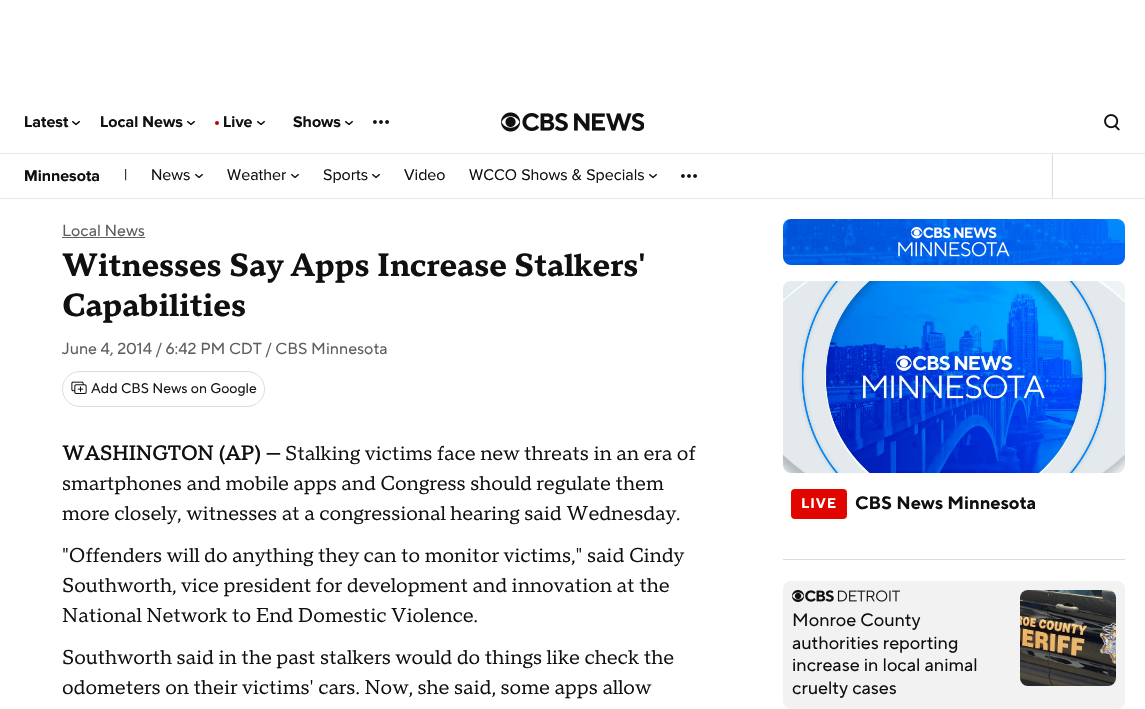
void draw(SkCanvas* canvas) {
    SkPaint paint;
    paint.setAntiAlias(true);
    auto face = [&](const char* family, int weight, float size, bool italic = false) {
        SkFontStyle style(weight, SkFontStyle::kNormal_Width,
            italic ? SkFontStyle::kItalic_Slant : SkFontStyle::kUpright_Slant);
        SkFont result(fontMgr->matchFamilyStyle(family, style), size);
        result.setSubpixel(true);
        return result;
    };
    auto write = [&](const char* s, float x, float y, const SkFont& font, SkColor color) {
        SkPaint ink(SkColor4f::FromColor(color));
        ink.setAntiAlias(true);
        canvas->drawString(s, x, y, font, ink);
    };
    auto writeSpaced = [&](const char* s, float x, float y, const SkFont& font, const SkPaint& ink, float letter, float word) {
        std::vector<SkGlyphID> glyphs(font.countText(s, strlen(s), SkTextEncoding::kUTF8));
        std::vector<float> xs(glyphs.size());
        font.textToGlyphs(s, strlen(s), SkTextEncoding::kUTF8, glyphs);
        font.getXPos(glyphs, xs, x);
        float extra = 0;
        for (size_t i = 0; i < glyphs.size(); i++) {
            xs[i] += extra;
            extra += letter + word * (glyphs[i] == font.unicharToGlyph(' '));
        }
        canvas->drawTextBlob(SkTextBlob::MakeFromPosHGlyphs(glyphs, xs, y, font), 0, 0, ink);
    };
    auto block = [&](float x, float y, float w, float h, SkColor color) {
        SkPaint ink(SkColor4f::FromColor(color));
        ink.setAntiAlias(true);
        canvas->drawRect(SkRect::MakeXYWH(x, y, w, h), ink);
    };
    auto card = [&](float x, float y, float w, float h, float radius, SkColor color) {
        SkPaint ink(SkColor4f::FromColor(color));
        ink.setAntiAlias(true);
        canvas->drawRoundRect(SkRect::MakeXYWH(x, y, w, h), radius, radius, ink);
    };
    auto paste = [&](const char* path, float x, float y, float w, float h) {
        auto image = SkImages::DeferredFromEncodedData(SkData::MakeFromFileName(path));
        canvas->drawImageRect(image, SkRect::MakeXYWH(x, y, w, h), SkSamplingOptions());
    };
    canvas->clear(SK_ColorWHITE);
    block(0, 153, 1145, 1, SkColorSetRGB(232, 232, 232));
    auto kFont1 = face("Proxima Nova", 700, 16);
    write("Latest", 24, 127, kFont1, SkColorSetRGB(16, 16, 16));
    paste("pic1.png", 72, 121, 8, 5);
    write("Local News", 100, 127, kFont1, SkColorSetRGB(16, 16, 16));
    paste("pic1.png", 187, 121, 8, 5);
    paint.setColor(SkColorSetRGB(182, 5, 5));
    canvas->drawCircle(217, 123, 2, paint);
    write("Live", 223, 127, kFont1, SkColorSetRGB(16, 16, 16));
    paste("pic1.png", 257, 121, 8, 5);
    write("Shows", 293, 127, kFont1, SkColorSetRGB(16, 16, 16));
    paste("pic1.png", 345, 121, 8, 5);
    paste("pic2.png", 373, 120, 16, 4);
    paste("pic3.png", 501, 112, 143, 20);
    paste("pic4.png", 1104, 114, 16, 17);
    block(0, 198, 1145, 1, SkColorSetRGB(232, 232, 232));
    write("Minnesota", 24, 181, kFont1, SkColorSetRGB(16, 16, 16));
    auto kFont2 = face("Proxima Nova", 400, 16);
    write("|", 124, 180, kFont2, SkColorSetRGB(16, 16, 16));
    write("News", 151, 180, kFont2, SkColorSetRGB(16, 16, 16));
    paste("pic5.png", 195, 174, 8, 5);
    write("Weather", 227, 180, kFont2, SkColorSetRGB(16, 16, 16));
    paste("pic5.png", 291, 174, 8, 5);
    write("Sports", 323, 180, kFont2, SkColorSetRGB(16, 16, 16));
    paste("pic5.png", 372, 174, 8, 5);
    write("Video", 404, 180, kFont2, SkColorSetRGB(16, 16, 16));
    write("WCCO Shows & Specials", 469, 180, kFont2, SkColorSetRGB(16, 16, 16));
    paste("pic5.png", 649, 174, 8, 5);
    paste("pic2.png", 681, 174, 16, 4);
    block(1052, 154, 1, 44, SkColorSetRGB(220, 220, 220));
    auto kFont3 = face("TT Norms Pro", 400, 16);
    write("Local News", 62, 236, kFont3, SkColorSetRGB(95, 95, 95));
    block(62, 237, 83, 1, SkColorSetRGB(95, 95, 95));
    auto kFont4 = face("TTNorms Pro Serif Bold", 700, 32);
    write("Witnesses Say Apps Increase Stalkers'", 62, 276, kFont4, SkColorSetRGB(16, 16, 16));
    write("Capabilities", 62, 316, kFont4, SkColorSetRGB(16, 16, 16));
    write("June 4, 2014 / 6:42 PM CDT / CBS Minnesota", 62, 354, kFont3, SkColorSetRGB(95, 95, 95));
    paint.setStyle(SkPaint::kStroke_Style);
    paint.setStrokeWidth(1);
    paint.setColor(SkColorSetRGB(220, 220, 220));
    canvas->drawRoundRect(SkRect::MakeXYWH(62.5f, 371.5f, 202, 35), 17.5f, 17.5f, paint);
    paste("pic6.png", 71, 381, 16, 13);
    auto kFont5 = face("TT Norms Pro", 400, 14);
    write("Add CBS News on Google", 91, 393, kFont5, SkColorSetRGB(24, 24, 24));
    auto kFont6 = face("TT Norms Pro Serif", 700, 20);
    write("WASHINGTON (AP) —", 62, 460, kFont6, SkColorSetRGB(16, 16, 16));
    auto kFont7 = face("TT Norms Pro Serif", 400, 20);
    write("Stalking victims face new threats in an era of", 285, 460, kFont7, SkColorSetRGB(16, 16, 16));
    write("smartphones and mobile apps and Congress should regulate them", 62, 490, kFont7, SkColorSetRGB(16, 16, 16));
    write("more closely, witnesses at a congressional hearing said Wednesday.", 62, 520, kFont7, SkColorSetRGB(16, 16, 16));
    write("\"Offenders will do anything they can to monitor victims,\" said Cindy", 62, 562, kFont7, SkColorSetRGB(16, 16, 16));
    write("Southworth, vice president for development and innovation at the", 62, 592, kFont7, SkColorSetRGB(16, 16, 16));
    write("National Network to End Domestic Violence.", 62, 622, kFont7, SkColorSetRGB(16, 16, 16));
    write("Southworth said in the past stalkers would do things like check the", 62, 664, kFont7, SkColorSetRGB(16, 16, 16));
    write("odometers on their victims' cars. Now, she said, some apps allow", 62, 694, kFont7, SkColorSetRGB(16, 16, 16));
    paste("pic7.png", 783, 219, 342, 46);
    paste("pic8.png", 898, 227, 112, 30);
    block(783, 559, 342, 1, SkColorSetRGB(220, 220, 220));
    paste("pic9.png", 783, 281, 342, 192);
    card(791, 489, 56, 30, 4, SkColorSetRGB(225, 5, 0));
    auto kFont8 = face("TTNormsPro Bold", 700, 14);
    paint.setStyle(SkPaint::kFill_Style);
    paint.setColor(SK_ColorWHITE);
    writeSpaced("LIVE", 801, 508, kFont8, paint, 1, 0);
    auto kFont9 = face("TTNormsPro Bold", 700, 18);
    write("CBS News Minnesota", 855, 509, kFont9, SkColorSetRGB(16, 16, 16));
    paint.setColor(SkColorSetRGB(242, 242, 242));
    canvas->drawRoundRect(SkRect::MakeXYWH(783.5f, 581.5f, 341, 127), 7.5f, 7.5f, paint);
    paint.setStyle(SkPaint::kStroke_Style);
    canvas->drawRoundRect(SkRect::MakeXYWH(783.5f, 581.5f, 341, 127), 7.5f, 7.5f, paint);
    paste("pic10.png", 792, 590, 108, 12);
    auto kFont10 = face("TT Norms Pro", 400, 18);
    write("Monroe County", 792, 626, kFont10, SkColorSetRGB(16, 16, 16));
    write("authorities reporting", 792, 649, kFont10, SkColorSetRGB(16, 16, 16));
    write("increase in local animal", 792, 671, kFont10, SkColorSetRGB(16, 16, 16));
    write("cruelty cases", 792, 694, kFont10, SkColorSetRGB(16, 16, 16));
    paste("pic11.png", 1020, 590, 96, 96);
}
